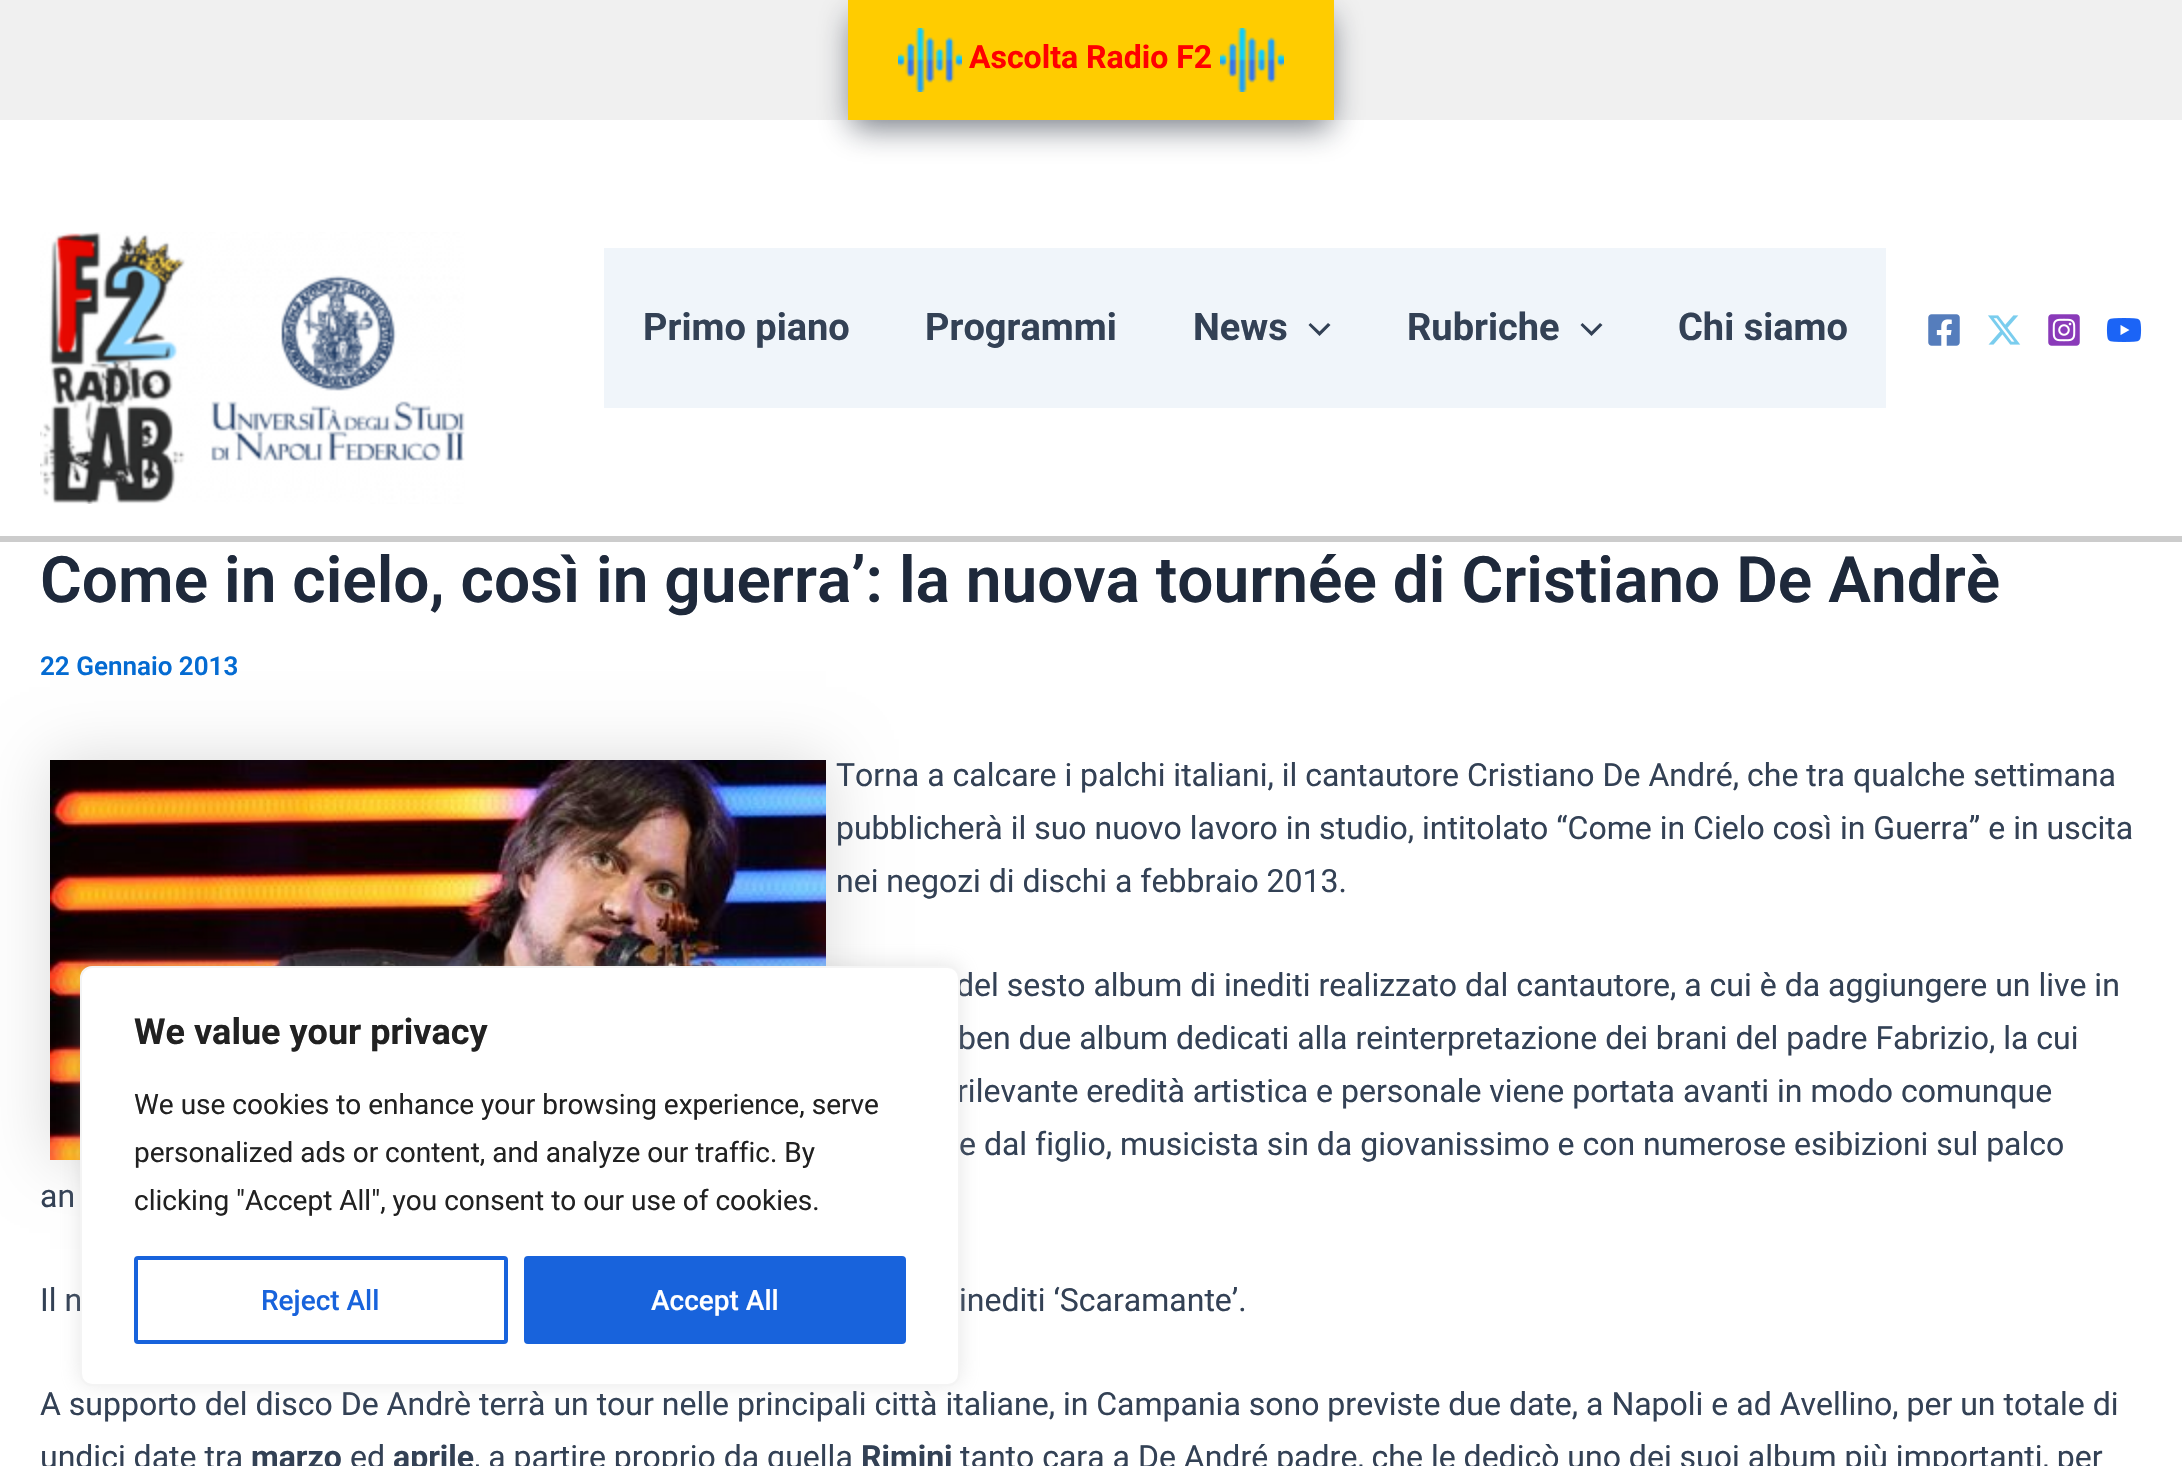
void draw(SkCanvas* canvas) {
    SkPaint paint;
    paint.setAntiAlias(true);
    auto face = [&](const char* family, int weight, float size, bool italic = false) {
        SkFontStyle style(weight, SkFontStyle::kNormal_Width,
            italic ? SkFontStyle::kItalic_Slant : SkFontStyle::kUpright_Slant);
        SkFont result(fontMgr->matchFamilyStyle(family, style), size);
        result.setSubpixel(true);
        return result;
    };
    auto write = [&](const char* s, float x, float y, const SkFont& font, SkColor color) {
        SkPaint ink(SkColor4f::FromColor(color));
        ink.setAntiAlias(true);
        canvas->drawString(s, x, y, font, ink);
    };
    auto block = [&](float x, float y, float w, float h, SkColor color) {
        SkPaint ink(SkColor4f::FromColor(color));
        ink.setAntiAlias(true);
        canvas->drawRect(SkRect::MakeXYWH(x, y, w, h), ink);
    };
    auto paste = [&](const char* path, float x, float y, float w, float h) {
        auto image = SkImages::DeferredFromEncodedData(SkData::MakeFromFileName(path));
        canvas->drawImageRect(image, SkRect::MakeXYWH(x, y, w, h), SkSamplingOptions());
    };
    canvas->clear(SK_ColorWHITE);
    block(0, 0, 2182, 120, SkColorSetRGB(240, 240, 240));
    paint.setColor(SkColorSetARGB(145, 16, 24, 40));
    paint.setMaskFilter(SkMaskFilter::MakeBlur(kNormal_SkBlurStyle, 15));
    canvas->drawRect(SkRect::MakeXYWH(852, 16, 478, 112), paint);
    paint.setMaskFilter(nullptr);
    block(848, 0, 486, 120, SkColorSetRGB(255, 204, 0));
    paste("pic1.png", 898, 28, 64, 64);
    auto kFont1 = face("Roboto", 700, 32);
    write("Ascolta Radio F2", 969, 68, kFont1, SkColorSetRGB(255, 0, 0));
    paste("pic1.png", 1220, 28, 64, 64);
    block(0, 536, 2182, 6, SkColorSetRGB(204, 204, 204));
    paste("pic2.png", 40, 232, 425, 272);
    block(604, 248, 1282, 160, SkColorSetRGB(240, 245, 250));
    auto kFont2 = face("Roboto", 700, 38);
    write("Primo piano", 643, 340, kFont2, SkColorSetRGB(51, 65, 85));
    write("Programmi", 925, 340, kFont2, SkColorSetRGB(51, 65, 85));
    write("News", 1193, 340, kFont2, SkColorSetRGB(51, 65, 85));
    paint.setColor(SkColorSetRGB(51, 65, 85));
    canvas->drawPath(SkPathBuilder().moveTo(1308.5f, 325).lineTo(1319.5f, 336).lineTo(1330.5f, 325).lineTo(1328, 323).lineTo(1319.5f, 331.5f).lineTo(1310.5f, 323).close().detach(), paint);
    write("Rubriche", 1407, 340, kFont2, SkColorSetRGB(51, 65, 85));
    canvas->drawPath(SkPathBuilder().moveTo(1580.5f, 325).lineTo(1591.5f, 336).lineTo(1602.5f, 325).lineTo(1600, 323).lineTo(1591.5f, 331.5f).lineTo(1582.5f, 323).close().detach(), paint);
    write("Chi siamo", 1678, 340, kFont2, SkColorSetRGB(51, 65, 85));
    paste("pic3.png", 1928, 314, 32, 32);
    paste("pic4.png", 1988, 315, 33, 30);
    paste("pic5.png", 2048, 314, 32, 32);
    paste("pic6.png", 2106, 318, 36, 24);
    auto kFont3 = face("Roboto", 600, 64);
    write("Come in cielo, così in guerra’: la nuova tournée di Cristiano De Andrè", 40, 602, kFont3, SkColorSetRGB(30, 41, 59));
    paint.setColor(SkColorSetARGB(38, 0, 0, 0));
    paint.setMaskFilter(SkMaskFilter::MakeBlur(kNormal_SkBlurStyle, 30));
    canvas->drawRect(SkRect::MakeXYWH(50, 760, 776, 400), paint);
    paint.setMaskFilter(nullptr);
    auto kFont4 = face("Roboto", 600, 26);
    write("22 Gennaio 2013", 40, 675, kFont4, SkColorSetRGB(4, 107, 210));
    paste("pic7.png", 50, 760, 776, 400);
    auto kFont5 = face("Roboto", 400, 32);
    write("Torna a calcare i palchi italiani, il cantautore Cristiano De André, che tra qualche settimana", 836, 786, kFont5, SkColorSetRGB(51, 65, 85));
    write("pubblicherà il suo nuovo lavoro in studio, intitolato “Come in Cielo così in Guerra” e in uscita", 836, 839, kFont5, SkColorSetRGB(51, 65, 85));
    write("nei negozi di dischi a febbraio 2013.", 836, 892, kFont5, SkColorSetRGB(51, 65, 85));
    write("del sesto album di inediti realizzato dal cantautore, a cui è da aggiungere un live in", 956, 996, kFont5, SkColorSetRGB(51, 65, 85));
    write("ben due album dedicati alla reinterpretazione dei brani del padre Fabrizio, la cui", 958, 1049, kFont5, SkColorSetRGB(51, 65, 85));
    write("rilevante eredità artistica e personale viene portata avanti in modo comunque", 957, 1102, kFont5, SkColorSetRGB(51, 65, 85));
    write("e dal figlio, musicista sin da giovanissimo e con numerose esibizioni sul palco", 959, 1155, kFont5, SkColorSetRGB(51, 65, 85));
    write("an", 40, 1207, kFont5, SkColorSetRGB(51, 65, 85));
    write("Il n", 40, 1311, kFont5, SkColorSetRGB(51, 65, 85));
    write("inediti ‘Scaramante’.", 959, 1311, kFont5, SkColorSetRGB(51, 65, 85));
    write("A supporto del disco De Andrè terrà un tour nelle principali città italiane, in Campania sono previste due date, a Napoli e ad Avellino, per un totale di", 40, 1415, kFont5, SkColorSetRGB(51, 65, 85));
    write("undici date tra", 40, 1468, kFont5, SkColorSetRGB(51, 65, 85));
    write("marzo", 251, 1468, kFont1, SkColorSetRGB(51, 65, 85));
    write("ed", 350, 1468, kFont5, SkColorSetRGB(51, 65, 85));
    write("aprile", 393, 1468, kFont1, SkColorSetRGB(51, 65, 85));
    write(", a partire proprio da quella", 474, 1468, kFont5, SkColorSetRGB(51, 65, 85));
    write("Rimini", 861, 1468, kFont1, SkColorSetRGB(51, 65, 85));
    write("tanto cara a De André padre, che le dedicò uno dei suoi album più importanti, per", 960, 1468, kFont5, SkColorSetRGB(51, 65, 85));
    paint.setColor(SkColorSetARGB(77, 172, 171, 171));
    paint.setMaskFilter(SkMaskFilter::MakeBlur(kNormal_SkBlurStyle, 10));
    canvas->drawRoundRect(SkRect::MakeXYWH(80, 964, 880, 420), 12, 12, paint);
    paint.setMaskFilter(nullptr);
    paint.setColor(SK_ColorWHITE);
    canvas->drawRoundRect(SkRect::MakeXYWH(81, 967, 878, 418), 11, 11, paint);
    paint.setStyle(SkPaint::kStroke_Style);
    paint.setStrokeWidth(2);
    paint.setColor(SkColorSetRGB(244, 244, 244));
    canvas->drawRoundRect(SkRect::MakeXYWH(81, 967, 878, 418), 11, 11, paint);
    auto kFont6 = face("Roboto", 700, 36);
    write("We value your privacy", 134, 1044, kFont6, SkColorSetRGB(33, 33, 33));
    auto kFont7 = face("Roboto", 400, 28);
    write("We use cookies to enhance your browsing experience, serve", 134, 1114, kFont7, SkColorSetRGB(33, 33, 33));
    write("personalized ads or content, and analyze our traffic. By", 134, 1162, kFont7, SkColorSetRGB(33, 33, 33));
    write("clicking \"Accept All\", you consent to our use of cookies.", 134, 1210, kFont7, SkColorSetRGB(33, 33, 33));
    paint.setStrokeWidth(4);
    paint.setColor(SkColorSetRGB(24, 99, 220));
    canvas->drawRoundRect(SkRect::MakeXYWH(136, 1258, 370, 84), 2, 2, paint);
    auto kFont8 = face("Roboto", 500, 28);
    write("Reject All", 261, 1310, kFont8, SkColorSetRGB(24, 99, 220));
    paint.setStyle(SkPaint::kFill_Style);
    canvas->drawRoundRect(SkRect::MakeXYWH(526, 1258, 378, 84), 2, 2, paint);
    paint.setStyle(SkPaint::kStroke_Style);
    canvas->drawRoundRect(SkRect::MakeXYWH(526, 1258, 378, 84), 2, 2, paint);
    write("Accept All", 651, 1310, kFont8, SK_ColorWHITE);
}
